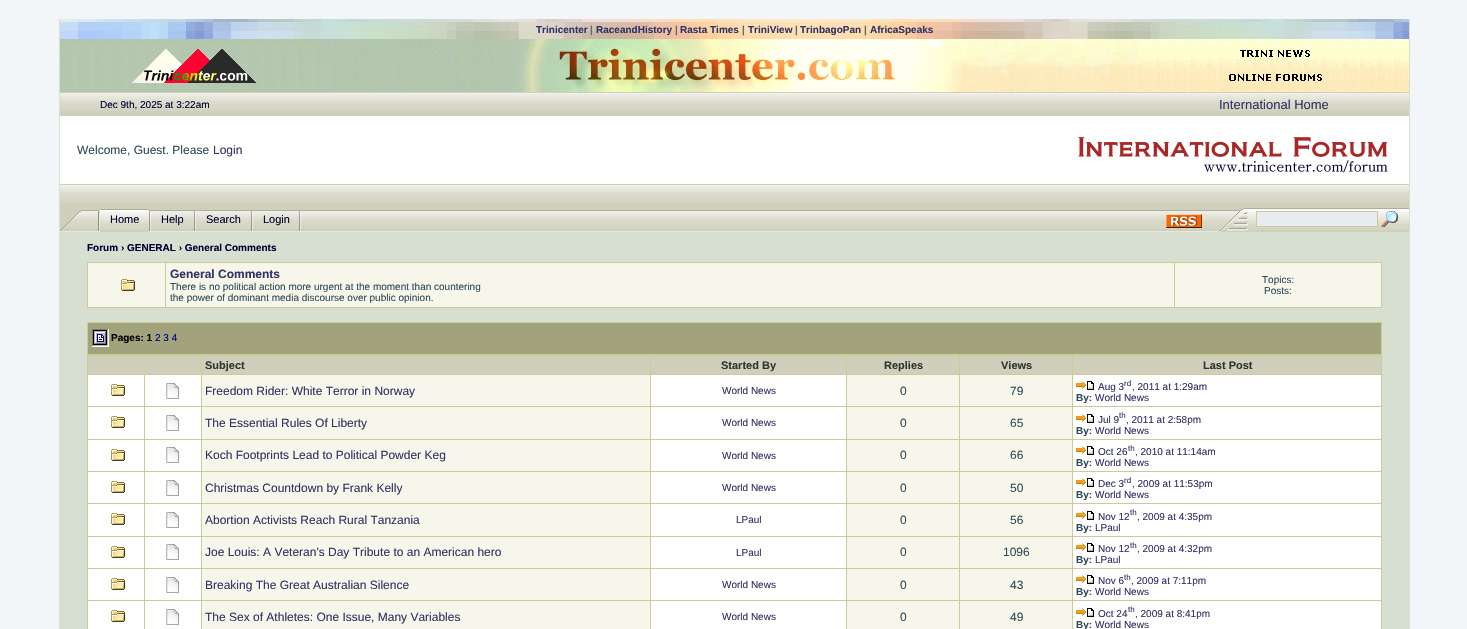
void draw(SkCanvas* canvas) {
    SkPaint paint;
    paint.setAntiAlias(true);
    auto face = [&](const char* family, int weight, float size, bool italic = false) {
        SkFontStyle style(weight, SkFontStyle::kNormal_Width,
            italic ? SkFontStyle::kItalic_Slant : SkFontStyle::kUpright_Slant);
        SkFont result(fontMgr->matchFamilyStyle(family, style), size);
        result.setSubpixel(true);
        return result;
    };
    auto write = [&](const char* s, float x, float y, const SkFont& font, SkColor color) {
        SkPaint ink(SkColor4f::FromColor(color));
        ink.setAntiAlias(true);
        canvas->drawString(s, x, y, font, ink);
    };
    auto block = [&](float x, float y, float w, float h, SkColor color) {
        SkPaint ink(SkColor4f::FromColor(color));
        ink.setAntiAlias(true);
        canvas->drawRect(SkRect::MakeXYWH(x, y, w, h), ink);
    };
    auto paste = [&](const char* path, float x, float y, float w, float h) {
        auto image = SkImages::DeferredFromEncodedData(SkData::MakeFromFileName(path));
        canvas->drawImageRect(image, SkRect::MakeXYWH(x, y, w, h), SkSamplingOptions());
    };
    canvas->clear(SkColorSetRGB(242, 246, 249));
    block(59, 19, 1351, 610, SkColorSetRGB(214, 223, 208));
    paste("pic1.png", 60, 19, 1349, 20);
    auto kFont1 = face("Liberation Sans", 700, 10);
    write("Trinicenter", 536, 33, kFont1, SkColorSetRGB(51, 51, 102));
    write("|", 590, 33, kFont1, SkColorSetRGB(98, 104, 111));
    write("RaceandHistory", 596, 33, kFont1, SkColorSetRGB(51, 51, 102));
    write("|", 675, 33, kFont1, SkColorSetRGB(98, 104, 111));
    write("Rasta Times", 680, 33, kFont1, SkColorSetRGB(51, 51, 102));
    write("|", 742, 33, kFont1, SkColorSetRGB(98, 104, 111));
    write("TriniView", 748, 33, kFont1, SkColorSetRGB(51, 51, 102));
    write("|", 795, 33, kFont1, SkColorSetRGB(98, 104, 111));
    write("TrinbagoPan", 800, 33, kFont1, SkColorSetRGB(51, 51, 102));
    write("|", 864, 33, kFont1, SkColorSetRGB(98, 104, 111));
    write("AfricaSpeaks", 870, 33, kFont1, SkColorSetRGB(51, 51, 102));
    block(60, 39, 270, 53, SkColorSetRGB(178, 198, 173));
    paste("pic2.png", 60, 44, 270, 45);
    paste("pic3.png", 132, 49, 124, 34);
    paste("pic4.png", 330, 39, 809, 53);
    paste("pic5.png", 501, 39, 466, 53);
    paste("pic6.png", 1139, 39, 270, 53);
    paste("pic7.png", 1217, 39, 115, 26);
    paste("pic8.png", 1217, 65, 115, 27);
    block(60, 92, 1349, 24, SkColorSetRGB(207, 207, 187));
    paste("pic9.png", 60, 93, 1349, 18);
    auto kFont2 = face("Liberation Sans", 400, 10);
    write("Dec 9th, 2025 at 3:22am", 100, 108, kFont2, SkColorSetRGB(0, 0, 51));
    auto kFont3 = face("Liberation Sans", 400, 13);
    write("International Home", 1219, 109, kFont3, SkColorSetRGB(51, 51, 102));
    block(60, 116, 1349, 68, SkColorSetRGB(254, 254, 254));
    auto kFont4 = face("Liberation Sans", 400, 12);
    write("Welcome, Guest. Please", 77, 154, kFont4, SkColorSetRGB(48, 75, 88));
    write("Login", 213, 154, kFont4, SkColorSetRGB(51, 51, 102));
    paste("pic10.png", 1078, 137, 310, 36);
    block(60, 184, 1349, 24, SkColorSetRGB(207, 207, 187));
    paste("pic9.png", 60, 185, 1349, 18);
    block(60, 208, 40, 24, SkColorSetRGB(207, 207, 187));
    paste("pic11.png", 60, 210, 40, 22);
    block(100, 208, 1309, 24, SkColorSetRGB(207, 207, 187));
    paste("pic12.png", 149, 210, 998, 22);
    paste("pic13.png", 100, 209, 49, 21);
    auto kFont5 = face("Liberation Sans", 400, 11);
    write("Home", 110, 223, kFont5, SkColorSetRGB(0, 0, 51));
    paste("pic14.png", 149, 211, 2, 21);
    block(151, 210, 43, 22, SkColorSetRGB(207, 207, 187));
    paste("pic15.png", 151, 210, 43, 22);
    write("Help", 161, 223, kFont5, SkColorSetRGB(0, 0, 51));
    paste("pic14.png", 194, 211, 2, 21);
    block(196, 210, 55, 22, SkColorSetRGB(207, 207, 187));
    paste("pic16.png", 196, 210, 55, 22);
    write("Search", 206, 223, kFont5, SkColorSetRGB(0, 0, 51));
    paste("pic14.png", 251, 211, 2, 21);
    block(253, 210, 46, 22, SkColorSetRGB(207, 207, 187));
    paste("pic17.png", 253, 210, 46, 22);
    write("Login", 263, 223, kFont5, SkColorSetRGB(0, 0, 51));
    paste("pic14.png", 299, 211, 2, 21);
    paste("pic18.png", 1147, 210, 17, 22);
    paste("pic19.png", 1164, 210, 40, 22);
    paste("pic20.png", 1166, 214, 36, 14);
    paste("pic21.png", 1204, 208, 45, 24);
    paste("pic22.png", 1249, 208, 160, 22);
    paint.setColor(SkColorSetRGB(232, 235, 239));
    canvas->drawRect(SkRect::MakeXYWH(1256.5f, 211.5f, 121, 15), paint);
    paint.setStyle(SkPaint::kStroke_Style);
    paint.setStrokeWidth(1);
    paint.setColor(SkColorSetRGB(204, 204, 153));
    canvas->drawRect(SkRect::MakeXYWH(1256.5f, 211.5f, 121, 15), paint);
    paste("pic23.png", 1381, 211, 17, 16);
    write("Forum › GENERAL › General Comments", 87, 251, kFont1, SkColorSetRGB(0, 0, 51));
    block(87, 262, 1295, 46, SkColorSetRGB(204, 204, 153));
    block(88, 263, 77, 44, SkColorSetRGB(246, 246, 235));
    paste("pic24.png", 121, 279, 14, 12);
    block(166, 263, 1008, 44, SkColorSetRGB(246, 246, 235));
    auto kFont6 = face("Liberation Sans", 700, 12);
    write("General Comments", 170, 278, kFont6, SkColorSetRGB(51, 51, 102));
    write("There is no political action more urgent at the moment than countering", 170, 290, kFont2, SkColorSetRGB(48, 75, 88));
    write("the power of dominant media discourse over public opinion.", 170, 301, kFont2, SkColorSetRGB(48, 75, 88));
    block(1175, 263, 206, 44, SkColorSetRGB(246, 246, 235));
    write("Topics:", 1262, 283, kFont2, SkColorSetRGB(48, 75, 88));
    write("Posts:", 1264, 294, kFont2, SkColorSetRGB(48, 75, 88));
    block(87, 322, 1295, 307, SkColorSetRGB(204, 204, 153));
    block(88, 323, 1293, 31, SkColorSetRGB(162, 162, 125));
    paste("pic25.png", 92, 329, 17, 18);
    write("Pages: 1", 111, 341, kFont1, SK_ColorBLACK);
    write("2 3 4", 155, 341, kFont2, SkColorSetRGB(0, 0, 134));
    block(88, 356, 113, 18, SkColorSetRGB(207, 207, 188));
    block(202, 356, 448, 18, SkColorSetRGB(207, 207, 188));
    auto kFont7 = face("Liberation Sans", 700, 11);
    write("Subject", 205, 369, kFont7, SkColorSetRGB(51, 51, 51));
    block(651, 356, 195, 18, SkColorSetRGB(207, 207, 188));
    write("Started By", 721, 369, kFont7, SkColorSetRGB(51, 51, 51));
    block(847, 356, 112, 18, SkColorSetRGB(207, 207, 188));
    write("Replies", 884, 369, kFont7, SkColorSetRGB(51, 51, 51));
    block(960, 356, 112, 18, SkColorSetRGB(207, 207, 188));
    write("Views", 1001, 369, kFont7, SkColorSetRGB(51, 51, 51));
    block(1073, 356, 308, 18, SkColorSetRGB(207, 207, 188));
    write("Last Post", 1203, 369, kFont7, SkColorSetRGB(51, 51, 51));
    block(88, 375, 56, 31, SkColorSetRGB(254, 254, 254));
    paste("pic26.png", 111, 384, 14, 12);
    block(145, 375, 56, 31, SkColorSetRGB(254, 254, 254));
    paste("pic27.png", 166, 383, 13, 16);
    block(202, 375, 448, 31, SkColorSetRGB(246, 246, 235));
    write("Freedom Rider: White Terror in Norway", 205, 395, kFont4, SkColorSetRGB(51, 51, 102));
    block(651, 375, 195, 31, SkColorSetRGB(254, 254, 254));
    write("World News", 722, 394, kFont2, SkColorSetRGB(51, 51, 102));
    block(847, 375, 112, 31, SkColorSetRGB(246, 246, 235));
    write("0", 900, 395, kFont4, SkColorSetRGB(48, 75, 88));
    block(960, 375, 112, 31, SkColorSetRGB(246, 246, 235));
    write("79", 1010, 395, kFont4, SkColorSetRGB(48, 75, 88));
    block(1073, 375, 308, 31, SkColorSetRGB(254, 254, 254));
    paste("pic28.png", 1076, 381, 18, 9);
    write("Aug 3", 1098, 390, kFont2, SkColorSetRGB(51, 51, 102));
    auto kFont8 = face("Liberation Sans", 400, 8);
    write("rd", 1124, 386, kFont8, SkColorSetRGB(51, 51, 102));
    write(", 2011 at 1:29am", 1132, 390, kFont2, SkColorSetRGB(51, 51, 102));
    write("By:", 1076, 401, kFont1, SkColorSetRGB(48, 75, 88));
    write("World News", 1095, 401, kFont2, SkColorSetRGB(51, 51, 102));
    block(88, 407, 56, 32, SkColorSetRGB(254, 254, 254));
    paste("pic26.png", 111, 416, 14, 12);
    block(145, 407, 56, 32, SkColorSetRGB(254, 254, 254));
    paste("pic27.png", 166, 415, 13, 16);
    block(202, 407, 448, 32, SkColorSetRGB(246, 246, 235));
    write("The Essential Rules Of Liberty", 205, 427, kFont4, SkColorSetRGB(51, 51, 102));
    block(651, 407, 195, 32, SkColorSetRGB(254, 254, 254));
    write("World News", 722, 426, kFont2, SkColorSetRGB(51, 51, 102));
    block(847, 407, 112, 32, SkColorSetRGB(246, 246, 235));
    write("0", 900, 427, kFont4, SkColorSetRGB(48, 75, 88));
    block(960, 407, 112, 32, SkColorSetRGB(246, 246, 235));
    write("65", 1010, 427, kFont4, SkColorSetRGB(48, 75, 88));
    block(1073, 407, 308, 32, SkColorSetRGB(254, 254, 254));
    paste("pic28.png", 1076, 414, 18, 9);
    write("Jul 9", 1098, 423, kFont2, SkColorSetRGB(51, 51, 102));
    write("th", 1119, 418, kFont8, SkColorSetRGB(51, 51, 102));
    write(", 2011 at 2:58pm", 1126, 423, kFont2, SkColorSetRGB(51, 51, 102));
    write("By:", 1076, 434, kFont1, SkColorSetRGB(48, 75, 88));
    write("World News", 1095, 434, kFont2, SkColorSetRGB(51, 51, 102));
    block(88, 440, 56, 31, SkColorSetRGB(254, 254, 254));
    paste("pic26.png", 111, 449, 14, 12);
    block(145, 440, 56, 31, SkColorSetRGB(254, 254, 254));
    paste("pic27.png", 166, 447, 13, 16);
    block(202, 440, 448, 31, SkColorSetRGB(246, 246, 235));
    write("Koch Footprints Lead to Political Powder Keg", 205, 459, kFont4, SkColorSetRGB(51, 51, 102));
    block(651, 440, 195, 31, SkColorSetRGB(254, 254, 254));
    write("World News", 722, 459, kFont2, SkColorSetRGB(51, 51, 102));
    block(847, 440, 112, 31, SkColorSetRGB(246, 246, 235));
    write("0", 900, 459, kFont4, SkColorSetRGB(48, 75, 88));
    block(960, 440, 112, 31, SkColorSetRGB(246, 246, 235));
    write("66", 1010, 459, kFont4, SkColorSetRGB(48, 75, 88));
    block(1073, 440, 308, 31, SkColorSetRGB(254, 254, 254));
    paste("pic28.png", 1076, 446, 18, 9);
    write("Oct 26", 1098, 455, kFont2, SkColorSetRGB(51, 51, 102));
    write("th", 1128, 451, kFont8, SkColorSetRGB(51, 51, 102));
    write(", 2010 at 11:14am", 1135, 455, kFont2, SkColorSetRGB(51, 51, 102));
    write("By:", 1076, 466, kFont1, SkColorSetRGB(48, 75, 88));
    write("World News", 1095, 466, kFont2, SkColorSetRGB(51, 51, 102));
    block(88, 472, 56, 31, SkColorSetRGB(254, 254, 254));
    paste("pic26.png", 111, 481, 14, 12);
    block(145, 472, 56, 31, SkColorSetRGB(254, 254, 254));
    paste("pic27.png", 166, 480, 13, 16);
    block(202, 472, 448, 31, SkColorSetRGB(246, 246, 235));
    write("Christmas Countdown by Frank Kelly", 205, 492, kFont4, SkColorSetRGB(51, 51, 102));
    block(651, 472, 195, 31, SkColorSetRGB(254, 254, 254));
    write("World News", 722, 491, kFont2, SkColorSetRGB(51, 51, 102));
    block(847, 472, 112, 31, SkColorSetRGB(246, 246, 235));
    write("0", 900, 492, kFont4, SkColorSetRGB(48, 75, 88));
    block(960, 472, 112, 31, SkColorSetRGB(246, 246, 235));
    write("50", 1010, 492, kFont4, SkColorSetRGB(48, 75, 88));
    block(1073, 472, 308, 31, SkColorSetRGB(254, 254, 254));
    paste("pic28.png", 1076, 478, 18, 9);
    write("Dec 3", 1098, 487, kFont2, SkColorSetRGB(51, 51, 102));
    write("rd", 1124, 483, kFont8, SkColorSetRGB(51, 51, 102));
    write(", 2009 at 11:53pm", 1132, 487, kFont2, SkColorSetRGB(51, 51, 102));
    write("By:", 1076, 498, kFont1, SkColorSetRGB(48, 75, 88));
    write("World News", 1095, 498, kFont2, SkColorSetRGB(51, 51, 102));
    block(88, 504, 56, 32, SkColorSetRGB(254, 254, 254));
    paste("pic26.png", 111, 513, 14, 12);
    block(145, 504, 56, 32, SkColorSetRGB(254, 254, 254));
    paste("pic27.png", 166, 512, 13, 16);
    block(202, 504, 448, 32, SkColorSetRGB(246, 246, 235));
    write("Abortion Activists Reach Rural Tanzania", 205, 524, kFont4, SkColorSetRGB(51, 51, 102));
    block(651, 504, 195, 32, SkColorSetRGB(254, 254, 254));
    write("LPaul", 736, 523, kFont2, SkColorSetRGB(51, 51, 102));
    block(847, 504, 112, 32, SkColorSetRGB(246, 246, 235));
    write("0", 900, 524, kFont4, SkColorSetRGB(48, 75, 88));
    block(960, 504, 112, 32, SkColorSetRGB(246, 246, 235));
    write("56", 1010, 524, kFont4, SkColorSetRGB(48, 75, 88));
    block(1073, 504, 308, 32, SkColorSetRGB(254, 254, 254));
    paste("pic28.png", 1076, 511, 18, 9);
    write("Nov 12", 1098, 520, kFont2, SkColorSetRGB(51, 51, 102));
    write("th", 1130, 515, kFont8, SkColorSetRGB(51, 51, 102));
    write(", 2009 at 4:35pm", 1137, 520, kFont2, SkColorSetRGB(51, 51, 102));
    write("By:", 1076, 531, kFont1, SkColorSetRGB(48, 75, 88));
    write("LPaul", 1095, 531, kFont2, SkColorSetRGB(51, 51, 102));
    block(88, 537, 56, 31, SkColorSetRGB(254, 254, 254));
    paste("pic26.png", 111, 546, 14, 12);
    block(145, 537, 56, 31, SkColorSetRGB(254, 254, 254));
    paste("pic27.png", 166, 544, 13, 16);
    block(202, 537, 448, 31, SkColorSetRGB(246, 246, 235));
    write("Joe Louis: A Veteran's Day Tribute to an American hero", 205, 556, kFont4, SkColorSetRGB(51, 51, 102));
    block(651, 537, 195, 31, SkColorSetRGB(254, 254, 254));
    write("LPaul", 736, 556, kFont2, SkColorSetRGB(51, 51, 102));
    block(847, 537, 112, 31, SkColorSetRGB(246, 246, 235));
    write("0", 900, 556, kFont4, SkColorSetRGB(48, 75, 88));
    block(960, 537, 112, 31, SkColorSetRGB(246, 246, 235));
    write("1096", 1003, 556, kFont4, SkColorSetRGB(48, 75, 88));
    block(1073, 537, 308, 31, SkColorSetRGB(254, 254, 254));
    paste("pic28.png", 1076, 543, 18, 9);
    write("Nov 12", 1098, 552, kFont2, SkColorSetRGB(51, 51, 102));
    write("th", 1130, 548, kFont8, SkColorSetRGB(51, 51, 102));
    write(", 2009 at 4:32pm", 1137, 552, kFont2, SkColorSetRGB(51, 51, 102));
    write("By:", 1076, 563, kFont1, SkColorSetRGB(48, 75, 88));
    write("LPaul", 1095, 563, kFont2, SkColorSetRGB(51, 51, 102));
    block(88, 569, 56, 31, SkColorSetRGB(254, 254, 254));
    paste("pic26.png", 111, 578, 14, 12);
    block(145, 569, 56, 31, SkColorSetRGB(254, 254, 254));
    paste("pic27.png", 166, 577, 13, 16);
    block(202, 569, 448, 31, SkColorSetRGB(246, 246, 235));
    write("Breaking The Great Australian Silence", 205, 589, kFont4, SkColorSetRGB(51, 51, 102));
    block(651, 569, 195, 31, SkColorSetRGB(254, 254, 254));
    write("World News", 722, 588, kFont2, SkColorSetRGB(51, 51, 102));
    block(847, 569, 112, 31, SkColorSetRGB(246, 246, 235));
    write("0", 900, 589, kFont4, SkColorSetRGB(48, 75, 88));
    block(960, 569, 112, 31, SkColorSetRGB(246, 246, 235));
    write("43", 1010, 589, kFont4, SkColorSetRGB(48, 75, 88));
    block(1073, 569, 308, 31, SkColorSetRGB(254, 254, 254));
    paste("pic28.png", 1076, 575, 18, 9);
    write("Nov 6", 1098, 584, kFont2, SkColorSetRGB(51, 51, 102));
    write("th", 1124, 580, kFont8, SkColorSetRGB(51, 51, 102));
    write(", 2009 at 7:11pm", 1131, 584, kFont2, SkColorSetRGB(51, 51, 102));
    write("By:", 1076, 595, kFont1, SkColorSetRGB(48, 75, 88));
    write("World News", 1095, 595, kFont2, SkColorSetRGB(51, 51, 102));
    block(88, 601, 56, 28, SkColorSetRGB(254, 254, 254));
    paste("pic26.png", 111, 610, 14, 12);
    block(145, 601, 56, 28, SkColorSetRGB(254, 254, 254));
    paste("pic27.png", 166, 609, 13, 16);
    block(202, 601, 448, 28, SkColorSetRGB(246, 246, 235));
    write("The Sex of Athletes: One Issue, Many Variables", 205, 621, kFont4, SkColorSetRGB(51, 51, 102));
    block(651, 601, 195, 28, SkColorSetRGB(254, 254, 254));
    write("World News", 722, 620, kFont2, SkColorSetRGB(51, 51, 102));
    block(847, 601, 112, 28, SkColorSetRGB(246, 246, 235));
    write("0", 900, 621, kFont4, SkColorSetRGB(48, 75, 88));
    block(960, 601, 112, 28, SkColorSetRGB(246, 246, 235));
    write("49", 1010, 621, kFont4, SkColorSetRGB(48, 75, 88));
    block(1073, 601, 308, 28, SkColorSetRGB(254, 254, 254));
    paste("pic28.png", 1076, 608, 18, 9);
    write("Oct 24", 1098, 617, kFont2, SkColorSetRGB(51, 51, 102));
    write("th", 1128, 612, kFont8, SkColorSetRGB(51, 51, 102));
    write(", 2009 at 8:41pm", 1135, 617, kFont2, SkColorSetRGB(51, 51, 102));
    write("By:", 1076, 628, kFont1, SkColorSetRGB(48, 75, 88));
    write("World News", 1095, 628, kFont2, SkColorSetRGB(51, 51, 102));
}
